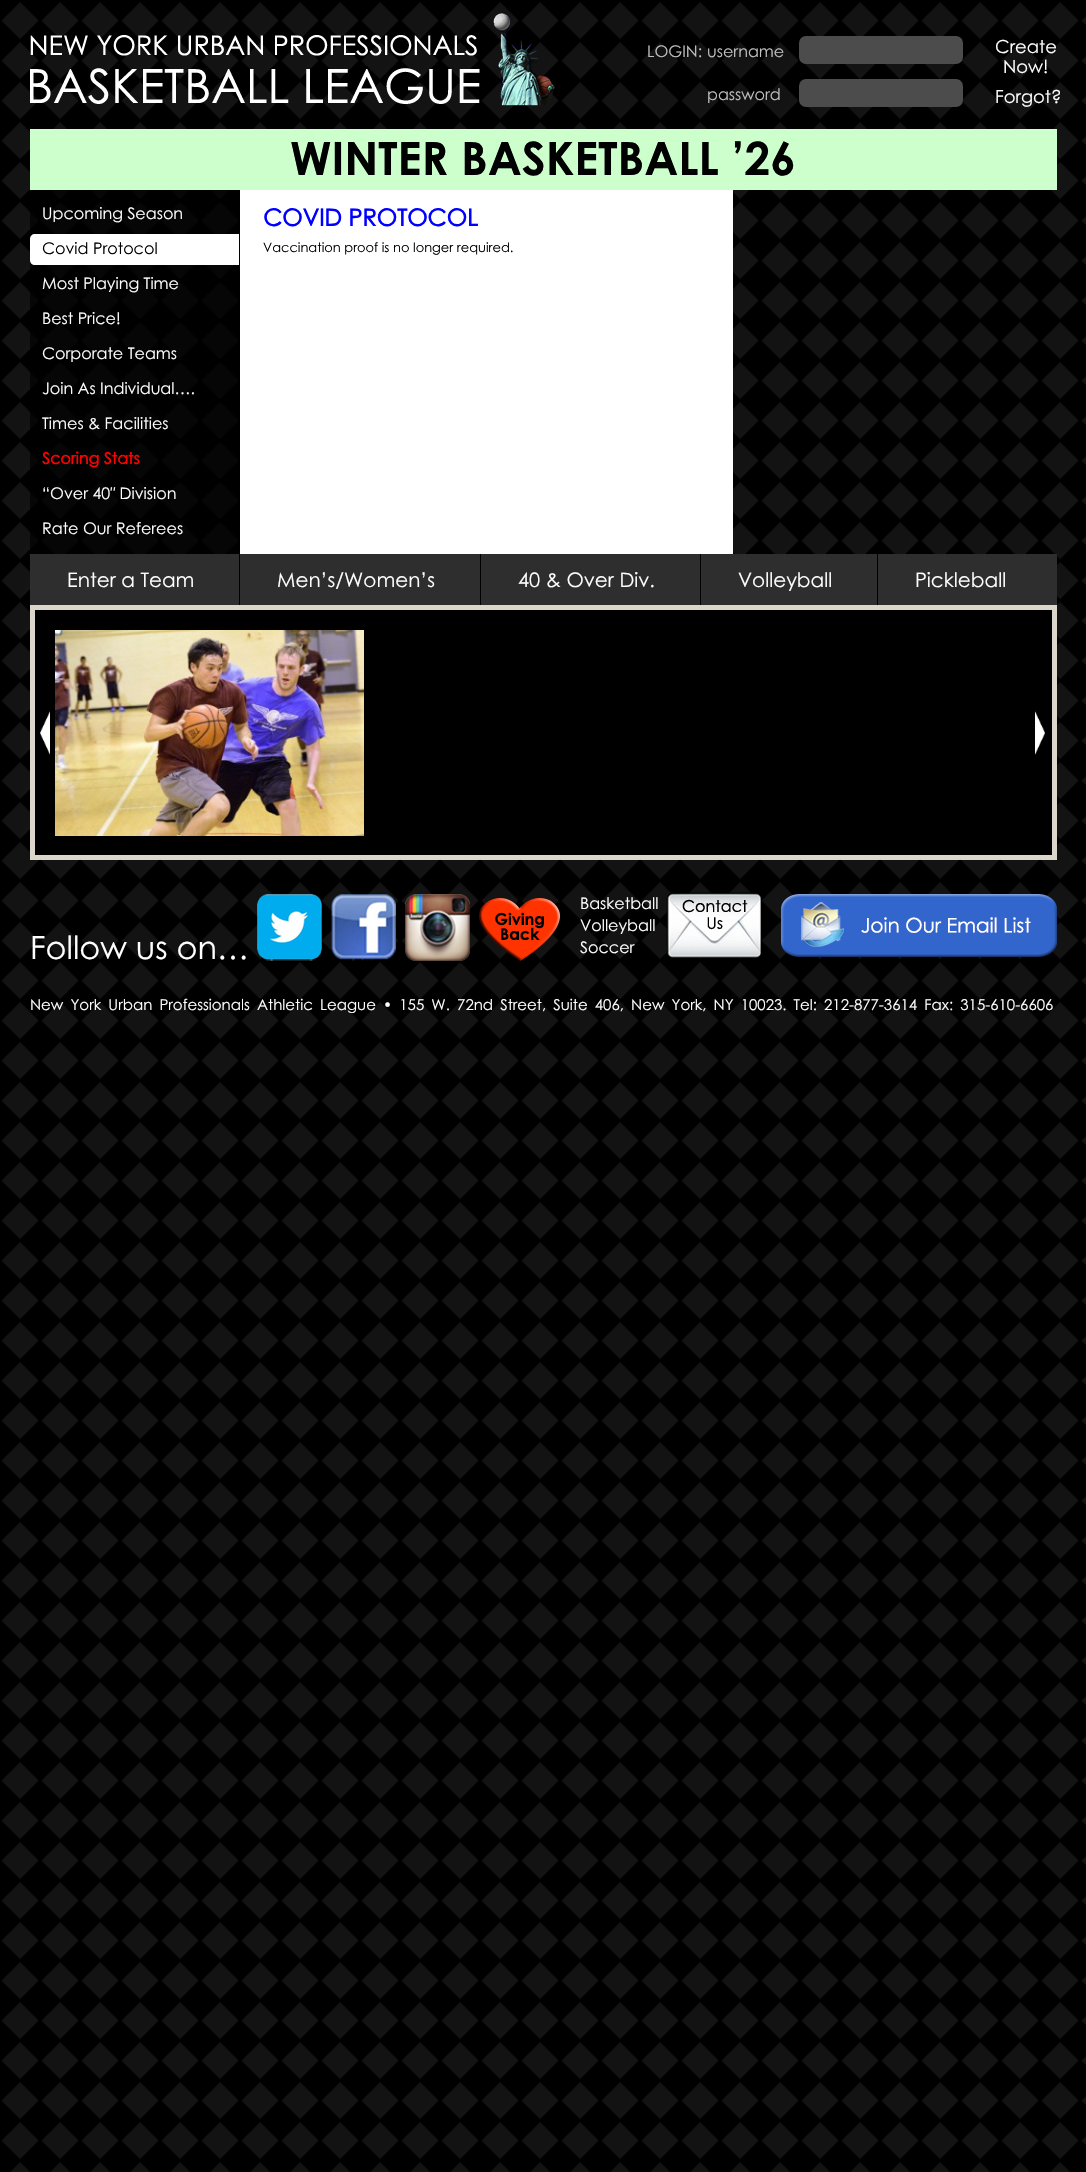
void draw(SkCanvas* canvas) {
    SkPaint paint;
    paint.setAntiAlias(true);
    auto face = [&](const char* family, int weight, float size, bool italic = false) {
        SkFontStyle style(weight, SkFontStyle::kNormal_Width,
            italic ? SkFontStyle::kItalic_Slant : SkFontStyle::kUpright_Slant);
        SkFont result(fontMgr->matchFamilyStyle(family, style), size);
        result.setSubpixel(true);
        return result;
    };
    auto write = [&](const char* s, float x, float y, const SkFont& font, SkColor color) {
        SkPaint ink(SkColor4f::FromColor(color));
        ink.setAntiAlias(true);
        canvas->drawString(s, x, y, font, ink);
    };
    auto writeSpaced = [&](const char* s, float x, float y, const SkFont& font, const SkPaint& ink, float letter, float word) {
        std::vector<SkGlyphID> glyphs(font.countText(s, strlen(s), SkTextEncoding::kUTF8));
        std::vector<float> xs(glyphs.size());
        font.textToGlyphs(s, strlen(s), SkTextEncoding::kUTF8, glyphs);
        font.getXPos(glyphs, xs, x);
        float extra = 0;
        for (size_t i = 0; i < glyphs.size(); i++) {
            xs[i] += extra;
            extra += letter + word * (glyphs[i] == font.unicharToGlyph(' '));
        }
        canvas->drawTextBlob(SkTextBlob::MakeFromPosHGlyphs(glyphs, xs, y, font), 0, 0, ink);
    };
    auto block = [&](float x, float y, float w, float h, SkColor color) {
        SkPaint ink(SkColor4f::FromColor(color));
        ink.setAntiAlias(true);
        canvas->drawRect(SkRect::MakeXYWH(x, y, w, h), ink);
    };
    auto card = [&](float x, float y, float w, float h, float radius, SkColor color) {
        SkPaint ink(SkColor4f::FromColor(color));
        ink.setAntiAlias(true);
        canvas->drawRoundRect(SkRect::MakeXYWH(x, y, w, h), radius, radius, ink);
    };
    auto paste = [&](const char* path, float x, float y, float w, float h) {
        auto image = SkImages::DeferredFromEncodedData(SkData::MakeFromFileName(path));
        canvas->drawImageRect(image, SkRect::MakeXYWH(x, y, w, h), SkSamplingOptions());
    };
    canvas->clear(SK_ColorWHITE);
    paste("pic1.png", 0, 0, 1086, 2172);
    paste("pic2.png", 30, 13, 525, 93);
    auto kFont1 = face("Century Gothic", 400, 16);
    write("LOGIN:", 647, 57, kFont1, SkColorSetRGB(193, 192, 192));
    write("username", 707, 57, kFont1, SkColorSetRGB(193, 192, 192));
    card(799, 36, 164, 28, 7, SkColorSetRGB(76, 76, 76));
    write("password", 707, 100, kFont1, SkColorSetRGB(193, 192, 192));
    card(799, 79, 164, 28, 7, SkColorSetRGB(76, 76, 76));
    auto kFont2 = face("Century Gothic", 400, 18);
    write("Create", 995, 53, kFont2, SK_ColorWHITE);
    write("Now!", 1003, 73, kFont2, SK_ColorWHITE);
    write("Forgot?", 995, 103, kFont2, SK_ColorWHITE);
    block(30, 129, 1027, 61, SkColorSetRGB(204, 255, 204));
    auto kFont3 = face("Century Gothic", 700, 46);
    write("WINTER BASKETBALL ’26", 290, 175, kFont3, SK_ColorBLACK);
    block(240, 190, 493, 364, SK_ColorWHITE);
    block(30, 190, 208, 364, SkColorSetARGB(179, 0, 0, 0));
    write("Upcoming Season", 42, 219, kFont1, SK_ColorWHITE);
    paint.setColor(SK_ColorWHITE);
    canvas->drawPath(SkPathBuilder().moveTo(35, 234).lineTo(239, 234).lineTo(239, 265).lineTo(35, 265).cubicTo(32, 265, 30, 263, 30, 260).lineTo(30, 239).cubicTo(30, 236, 32, 234, 35, 234).close().detach(), paint);
    write("Covid Protocol", 42, 254, kFont1, SK_ColorBLACK);
    write("Most Playing Time", 42, 289, kFont1, SK_ColorWHITE);
    write("Best Price!", 42, 324, kFont1, SK_ColorWHITE);
    write("Corporate Teams", 42, 359, kFont1, SK_ColorWHITE);
    write("Join As Individual….", 42, 394, kFont1, SK_ColorWHITE);
    write("Times & Facilities", 42, 429, kFont1, SK_ColorWHITE);
    auto kFont4 = face("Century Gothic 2", 700, 16);
    write("Scoring Stats", 42, 464, kFont4, SkColorSetRGB(255, 0, 0));
    write("“Over 40″ Division", 42, 499, kFont1, SK_ColorWHITE);
    write("Rate Our Referees", 42, 534, kFont1, SK_ColorWHITE);
    auto kFont5 = face("Century Gothic 2", 700, 23.5f);
    write("COVID PROTOCOL", 263, 226, kFont5, SkColorSetRGB(0, 0, 255));
    auto kFont6 = face("Century Gothic", 400, 13);
    write("Vaccination proof is no longer required.", 263, 252, kFont6, SK_ColorBLACK);
    block(30, 554, 1027, 51, SkColorSetRGB(46, 46, 46));
    auto kFont7 = face("Century Gothic", 400, 20);
    write("Enter a Team", 67, 587, kFont7, SK_ColorWHITE);
    block(239, 554, 1, 51, SK_ColorBLACK);
    write("Men’s/Women’s", 277, 587, kFont7, SK_ColorWHITE);
    block(480, 554, 1, 51, SK_ColorBLACK);
    write("40 & Over Div.", 518, 587, kFont7, SK_ColorWHITE);
    block(700, 554, 1, 51, SK_ColorBLACK);
    write("Volleyball", 738, 587, kFont7, SK_ColorWHITE);
    block(877, 554, 1, 51, SK_ColorBLACK);
    write("Pickleball", 915, 587, kFont7, SK_ColorWHITE);
    block(30, 605, 1027, 255, SkColorSetRGB(218, 214, 203));
    block(35, 610, 1017, 245, SK_ColorBLACK);
    paste("pic3.png", 40, 711, 10, 44);
    paste("pic4.png", 55, 630, 309, 206);
    paste("pic5.png", 1035, 711, 10, 44);
    auto kFont8 = face("Century Gothic", 400, 32);
    write("Follow us on…", 30, 959, kFont8, SK_ColorWHITE);
    paste("pic6.png", 257, 894, 65, 67);
    paste("pic7.png", 331, 894, 65, 67);
    paste("pic8.png", 405, 894, 65, 67);
    paste("pic9.png", 479, 898, 81, 63);
    paste("pic10.png", 666, 892, 97, 67);
    paste("pic11.png", 781, 894, 276, 63);
    write("Basketball", 580, 909, kFont1, SK_ColorWHITE);
    write("Volleyball", 580, 931, kFont1, SK_ColorWHITE);
    write("Soccer", 580, 953, kFont1, SK_ColorWHITE);
    auto kFont9 = face("Century Gothic", 400, 15);
    writeSpaced("New York Urban Professionals Athletic League • 155 W. 72nd Street, Suite 406, New York, NY 10023. Tel: 212-877-3614 Fax: 315-610-6606", 30, 1010, kFont9, paint, 0, 3);
}
